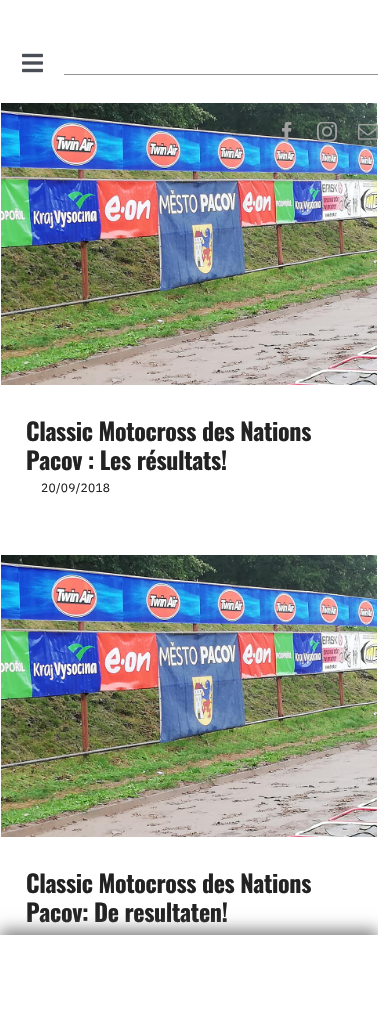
void draw(SkCanvas* canvas) {
    SkPaint paint;
    paint.setAntiAlias(true);
    auto face = [&](const char* family, int weight, float size, bool italic = false) {
        SkFontStyle style(weight, SkFontStyle::kNormal_Width,
            italic ? SkFontStyle::kItalic_Slant : SkFontStyle::kUpright_Slant);
        SkFont result(fontMgr->matchFamilyStyle(family, style), size);
        result.setSubpixel(true);
        return result;
    };
    auto writeSpaced = [&](const char* s, float x, float y, const SkFont& font, const SkPaint& ink, float letter, float word) {
        std::vector<SkGlyphID> glyphs(font.countText(s, strlen(s), SkTextEncoding::kUTF8));
        std::vector<float> xs(glyphs.size());
        font.textToGlyphs(s, strlen(s), SkTextEncoding::kUTF8, glyphs);
        font.getXPos(glyphs, xs, x);
        float extra = 0;
        for (size_t i = 0; i < glyphs.size(); i++) {
            xs[i] += extra;
            extra += letter + word * (glyphs[i] == font.unicharToGlyph(' '));
        }
        canvas->drawTextBlob(SkTextBlob::MakeFromPosHGlyphs(glyphs, xs, y, font), 0, 0, ink);
    };
    auto block = [&](float x, float y, float w, float h, SkColor color) {
        SkPaint ink(SkColor4f::FromColor(color));
        ink.setAntiAlias(true);
        canvas->drawRect(SkRect::MakeXYWH(x, y, w, h), ink);
    };
    auto paste = [&](const char* path, float x, float y, float w, float h) {
        auto image = SkImages::DeferredFromEncodedData(SkData::MakeFromFileName(path));
        canvas->drawImageRect(image, SkRect::MakeXYWH(x, y, w, h), SkSamplingOptions());
    };
    canvas->clear(SK_ColorWHITE);
    block(64, 74, 314, 1, SkColorSetRGB(147, 147, 147));
    paste("pic1.png", 22, 53, 21, 20);
    paste("pic5.png", 1, 103, 376, 282);
    paste("pic2.png", 282, 122, 10, 20);
    paste("pic3.png", 317, 122, 20, 20);
    paste("pic4.png", 358, 124, 20, 16);
    auto kFont1 = face("Oswald", 700, 24);
    paint.setColor(SkColorSetRGB(34, 34, 34));
    writeSpaced("Classic Motocross des Nations", 26, 441, kFont1, paint, -0.35f, 0);
    writeSpaced("Pacov : Les résultats!", 26, 470, kFont1, paint, -0.35f, 0);
    auto kFont2 = face("IBM Plex Sans", 400, 12);
    writeSpaced("20/09/2018", 41, 492, kFont2, paint, 0.25f, 0);
    paste("pic6.png", 1, 555, 376, 282);
    writeSpaced("Classic Motocross des Nations", 26, 893, kFont1, paint, -0.35f, 0);
    writeSpaced("Pacov: De resultaten!", 26, 922, kFont1, paint, -0.35f, 0);
    paint.setColor(SkColorSetRGB(128, 128, 128));
    paint.setMaskFilter(SkMaskFilter::MakeBlur(kNormal_SkBlurStyle, 7.5f));
    canvas->drawRect(SkRect::MakeXYWH(0, 930, 378, 100), paint);
    paint.setMaskFilter(nullptr);
    block(0, 935, 378, 100, SK_ColorWHITE);
}
